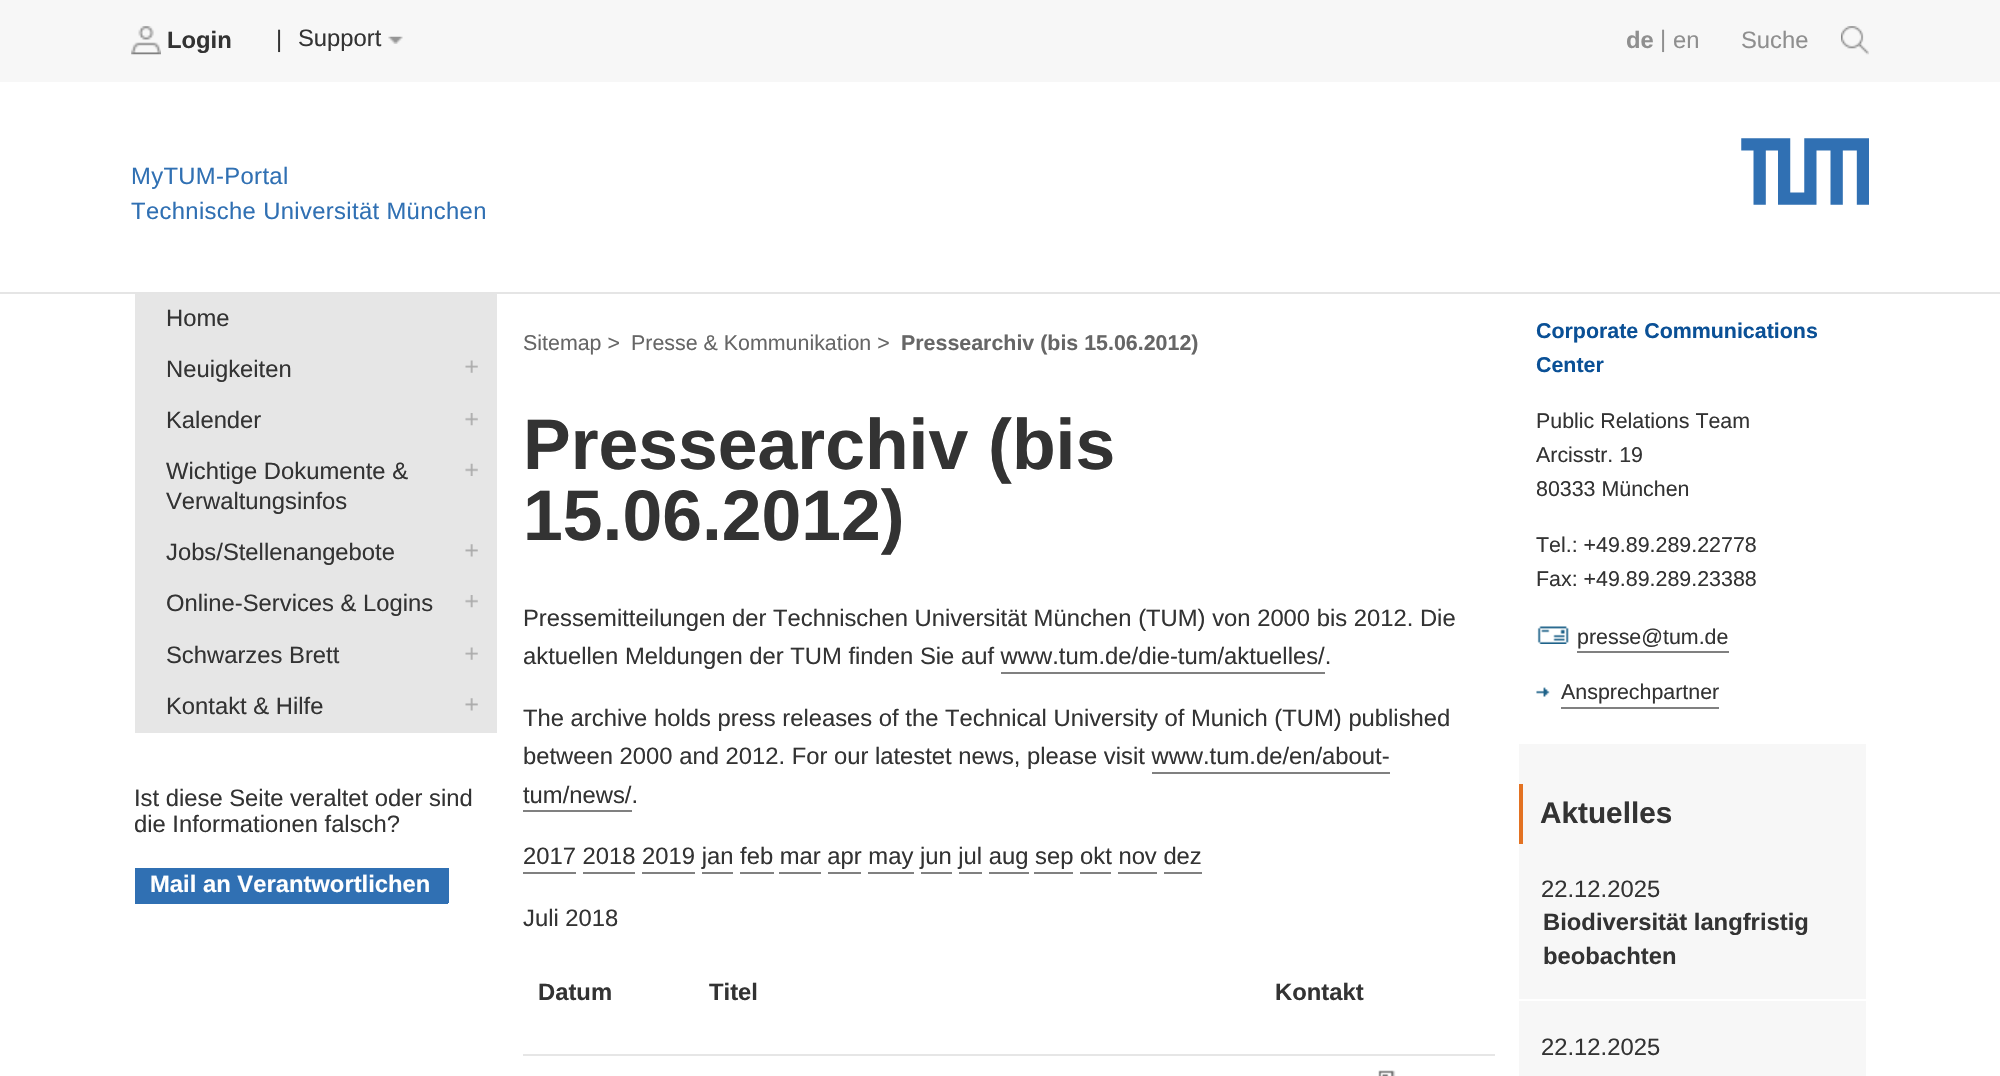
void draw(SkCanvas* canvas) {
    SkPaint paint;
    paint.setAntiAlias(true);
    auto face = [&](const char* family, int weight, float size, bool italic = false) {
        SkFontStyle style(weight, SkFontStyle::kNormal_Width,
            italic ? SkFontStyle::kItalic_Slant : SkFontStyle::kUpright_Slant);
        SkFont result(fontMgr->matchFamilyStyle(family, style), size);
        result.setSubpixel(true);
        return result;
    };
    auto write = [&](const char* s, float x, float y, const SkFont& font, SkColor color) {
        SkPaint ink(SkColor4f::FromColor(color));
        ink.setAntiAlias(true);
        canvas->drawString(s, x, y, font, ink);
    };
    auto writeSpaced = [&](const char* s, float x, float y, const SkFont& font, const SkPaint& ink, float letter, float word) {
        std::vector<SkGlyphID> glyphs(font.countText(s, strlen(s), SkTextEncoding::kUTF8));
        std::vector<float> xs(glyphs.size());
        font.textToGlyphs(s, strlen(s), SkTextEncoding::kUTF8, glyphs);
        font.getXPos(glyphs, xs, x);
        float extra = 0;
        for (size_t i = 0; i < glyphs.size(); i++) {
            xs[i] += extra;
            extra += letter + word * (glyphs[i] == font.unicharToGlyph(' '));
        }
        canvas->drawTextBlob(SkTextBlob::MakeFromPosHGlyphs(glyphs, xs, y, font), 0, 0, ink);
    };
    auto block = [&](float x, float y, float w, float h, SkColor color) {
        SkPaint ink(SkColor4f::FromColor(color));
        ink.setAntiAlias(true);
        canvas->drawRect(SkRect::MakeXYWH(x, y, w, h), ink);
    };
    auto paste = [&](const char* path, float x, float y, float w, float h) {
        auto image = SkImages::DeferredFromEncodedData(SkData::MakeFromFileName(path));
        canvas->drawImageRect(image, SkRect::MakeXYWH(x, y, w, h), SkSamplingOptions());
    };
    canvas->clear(SkColorSetRGB(247, 247, 247));
    paste("pic1.png", 131, 26, 30, 29);
    auto kFont1 = face("Liberation Sans", 700, 23.8f);
    write("Login", 167, 48, kFont1, SkColorSetRGB(51, 51, 51));
    auto kFont2 = face("Liberation Sans", 400, 23.8f);
    write("|", 276, 47, kFont2, SkColorSetRGB(51, 51, 51));
    write("Support", 298, 46, kFont2, SkColorSetRGB(51, 51, 51));
    paste("pic2.png", 388, 36, 15, 8);
    write("de", 1626, 48, kFont1, SkColorSetRGB(143, 143, 143));
    write("|", 1660, 47, kFont2, SkColorSetRGB(143, 143, 143));
    write("en", 1673, 48, kFont2, SkColorSetRGB(143, 143, 143));
    write("Suche", 1741, 48, kFont2, SkColorSetRGB(143, 143, 143));
    paste("pic3.png", 1841, 26, 28, 29);
    block(0, 82, 2000, 210, SK_ColorWHITE);
    block(0, 292, 2000, 2, SkColorSetRGB(229, 229, 229));
    paint.setColor(SkColorSetRGB(48, 112, 179));
    writeSpaced("MyTUM-Portal", 131, 184, kFont2, paint, 0.35f, 0);
    writeSpaced("Technische Universität München", 131, 219, kFont2, paint, 0.35f, 0);
    paste("pic4.png", 1741, 138, 128, 67);
    block(1519, 294, 481, 782, SK_ColorWHITE);
    block(0, 294, 1519, 782, SK_ColorWHITE);
    block(135, 294, 362, 439, SkColorSetRGB(230, 230, 230));
    write("Home", 166, 326, kFont2, SkColorSetRGB(51, 51, 51));
    write("Neuigkeiten", 166, 377, kFont2, SkColorSetRGB(51, 51, 51));
    paste("pic5.png", 465, 360, 13, 13);
    write("Kalender", 166, 428, kFont2, SkColorSetRGB(51, 51, 51));
    paste("pic6.png", 465, 413, 13, 13);
    write("Wichtige Dokumente &", 166, 479, kFont2, SkColorSetRGB(51, 51, 51));
    write("Verwaltungsinfos", 166, 509, kFont2, SkColorSetRGB(51, 51, 51));
    paste("pic7.png", 465, 463, 13, 13);
    write("Jobs/Stellenangebote", 166, 560, kFont2, SkColorSetRGB(51, 51, 51));
    paste("pic8.png", 465, 544, 13, 13);
    write("Online-Services & Logins", 166, 611, kFont2, SkColorSetRGB(51, 51, 51));
    paste("pic6.png", 465, 595, 13, 13);
    write("Schwarzes Brett", 166, 663, kFont2, SkColorSetRGB(51, 51, 51));
    paste("pic5.png", 465, 647, 13, 13);
    write("Kontakt & Hilfe", 166, 714, kFont2, SkColorSetRGB(51, 51, 51));
    paste("pic8.png", 465, 698, 13, 13);
    write("Ist diese Seite veraltet oder sind", 134, 806, kFont2, SkColorSetRGB(51, 51, 51));
    write("die Informationen falsch?", 134, 832, kFont2, SkColorSetRGB(51, 51, 51));
    block(137, 870, 308, 30, SkColorSetRGB(48, 112, 179));
    block(135, 868, 313, 2, SkColorSetRGB(48, 112, 179));
    block(445, 868, 4, 35, SkColorSetRGB(48, 112, 179));
    block(135, 900, 313, 4, SkColorSetRGB(48, 112, 179));
    block(135, 868, 2, 35, SkColorSetRGB(48, 112, 179));
    write("Mail an Verantwortlichen", 150, 892, kFont1, SK_ColorWHITE);
    auto kFont3 = face("Liberation Sans", 400, 21.4f);
    write("Sitemap >", 523, 350, kFont3, SkColorSetRGB(102, 102, 102));
    write("Presse & Kommunikation >", 631, 350, kFont3, SkColorSetRGB(102, 102, 102));
    auto kFont4 = face("Liberation Sans", 700, 21.4f);
    write("Pressearchiv (bis 15.06.2012)", 901, 350, kFont4, SkColorSetRGB(102, 102, 102));
    auto kFont5 = face("Liberation Sans", 700, 71.5f);
    write("Pressearchiv (bis", 523, 469, kFont5, SkColorSetRGB(51, 51, 51));
    write("15.06.2012)", 523, 540, kFont5, SkColorSetRGB(51, 51, 51));
    write("Pressemitteilungen der Technischen Universität München (TUM) von 2000 bis 2012. Die", 523, 626, kFont2, SkColorSetRGB(51, 51, 51));
    write("aktuellen Meldungen der TUM finden Sie auf www.tum.de/die-tum/aktuelles/.", 523, 664, kFont2, SkColorSetRGB(51, 51, 51));
    block(1001, 672, 324, 2, SkColorSetRGB(128, 128, 128));
    write("The archive holds press releases of the Technical University of Munich (TUM) published", 523, 726, kFont2, SkColorSetRGB(51, 51, 51));
    write("between 2000 and 2012. For our latestet news, please visit www.tum.de/en/about-", 523, 764, kFont2, SkColorSetRGB(51, 51, 51));
    write("tum/news/.", 523, 803, kFont2, SkColorSetRGB(51, 51, 51));
    block(1152, 772, 238, 2, SkColorSetRGB(128, 128, 128));
    block(523, 810, 109, 2, SkColorSetRGB(128, 128, 128));
    write("2017 2018 2019 jan feb mar apr may jun jul aug sep okt nov dez", 523, 864, kFont2, SkColorSetRGB(51, 51, 51));
    block(523, 872, 53, 2, SkColorSetRGB(128, 128, 128));
    block(583, 872, 52, 2, SkColorSetRGB(128, 128, 128));
    block(642, 872, 53, 2, SkColorSetRGB(128, 128, 128));
    block(702, 872, 31, 2, SkColorSetRGB(128, 128, 128));
    block(740, 872, 34, 2, SkColorSetRGB(128, 128, 128));
    block(779, 872, 42, 2, SkColorSetRGB(128, 128, 128));
    block(828, 872, 33, 2, SkColorSetRGB(128, 128, 128));
    block(868, 872, 46, 2, SkColorSetRGB(128, 128, 128));
    block(921, 872, 31, 2, SkColorSetRGB(128, 128, 128));
    block(959, 872, 23, 2, SkColorSetRGB(128, 128, 128));
    block(989, 872, 40, 2, SkColorSetRGB(128, 128, 128));
    block(1034, 872, 39, 2, SkColorSetRGB(128, 128, 128));
    block(1080, 872, 31, 2, SkColorSetRGB(128, 128, 128));
    block(1118, 872, 39, 2, SkColorSetRGB(128, 128, 128));
    block(1164, 872, 38, 2, SkColorSetRGB(128, 128, 128));
    write("Juli 2018", 523, 926, kFont2, SkColorSetRGB(51, 51, 51));
    write("Datum", 538, 1000, kFont1, SkColorSetRGB(51, 51, 51));
    write("Titel", 709, 1000, kFont1, SkColorSetRGB(51, 51, 51));
    write("Kontakt", 1275, 1000, kFont1, SkColorSetRGB(51, 51, 51));
    block(523, 1054, 972, 2, SkColorSetRGB(230, 230, 230));
    paste("pic9.png", 1378, 1070, 18, 6);
    write("Corporate Communications", 1536, 338, kFont4, SkColorSetRGB(10, 80, 150));
    write("Center", 1536, 372, kFont4, SkColorSetRGB(10, 80, 150));
    write("Public Relations Team", 1536, 428, kFont3, SkColorSetRGB(51, 51, 51));
    write("Arcisstr. 19", 1536, 462, kFont3, SkColorSetRGB(51, 51, 51));
    write("80333 München", 1536, 496, kFont3, SkColorSetRGB(51, 51, 51));
    write("Tel.: +49.89.289.22778", 1536, 552, kFont3, SkColorSetRGB(51, 51, 51));
    write("Fax: +49.89.289.23388", 1536, 586, kFont3, SkColorSetRGB(51, 51, 51));
    paste("pic10.png", 1537, 626, 32, 18);
    write("presse@tum.de", 1577, 644, kFont3, SkColorSetRGB(51, 51, 51));
    block(1577, 651, 152, 2, SkColorSetRGB(128, 128, 128));
    paste("pic11.png", 1536, 687, 14, 10);
    write("Ansprechpartner", 1561, 699, kFont3, SkColorSetRGB(51, 51, 51));
    block(1561, 707, 158, 2, SkColorSetRGB(128, 128, 128));
    block(1519, 744, 347, 332, SkColorSetRGB(247, 247, 247));
    block(1519, 784, 4, 60, SkColorSetRGB(227, 114, 34));
    auto kFont6 = face("Liberation Sans", 700, 29.75f);
    write("Aktuelles", 1540, 823, kFont6, SkColorSetRGB(51, 51, 51));
    write("22.12.2025", 1541, 897, kFont2, SkColorSetRGB(51, 51, 51));
    block(1519, 999, 347, 2, SK_ColorWHITE);
    write("Biodiversität langfristig", 1543, 930, kFont1, SkColorSetRGB(51, 51, 51));
    write("beobachten", 1543, 964, kFont1, SkColorSetRGB(51, 51, 51));
    write("22.12.2025", 1541, 1055, kFont2, SkColorSetRGB(51, 51, 51));
}
